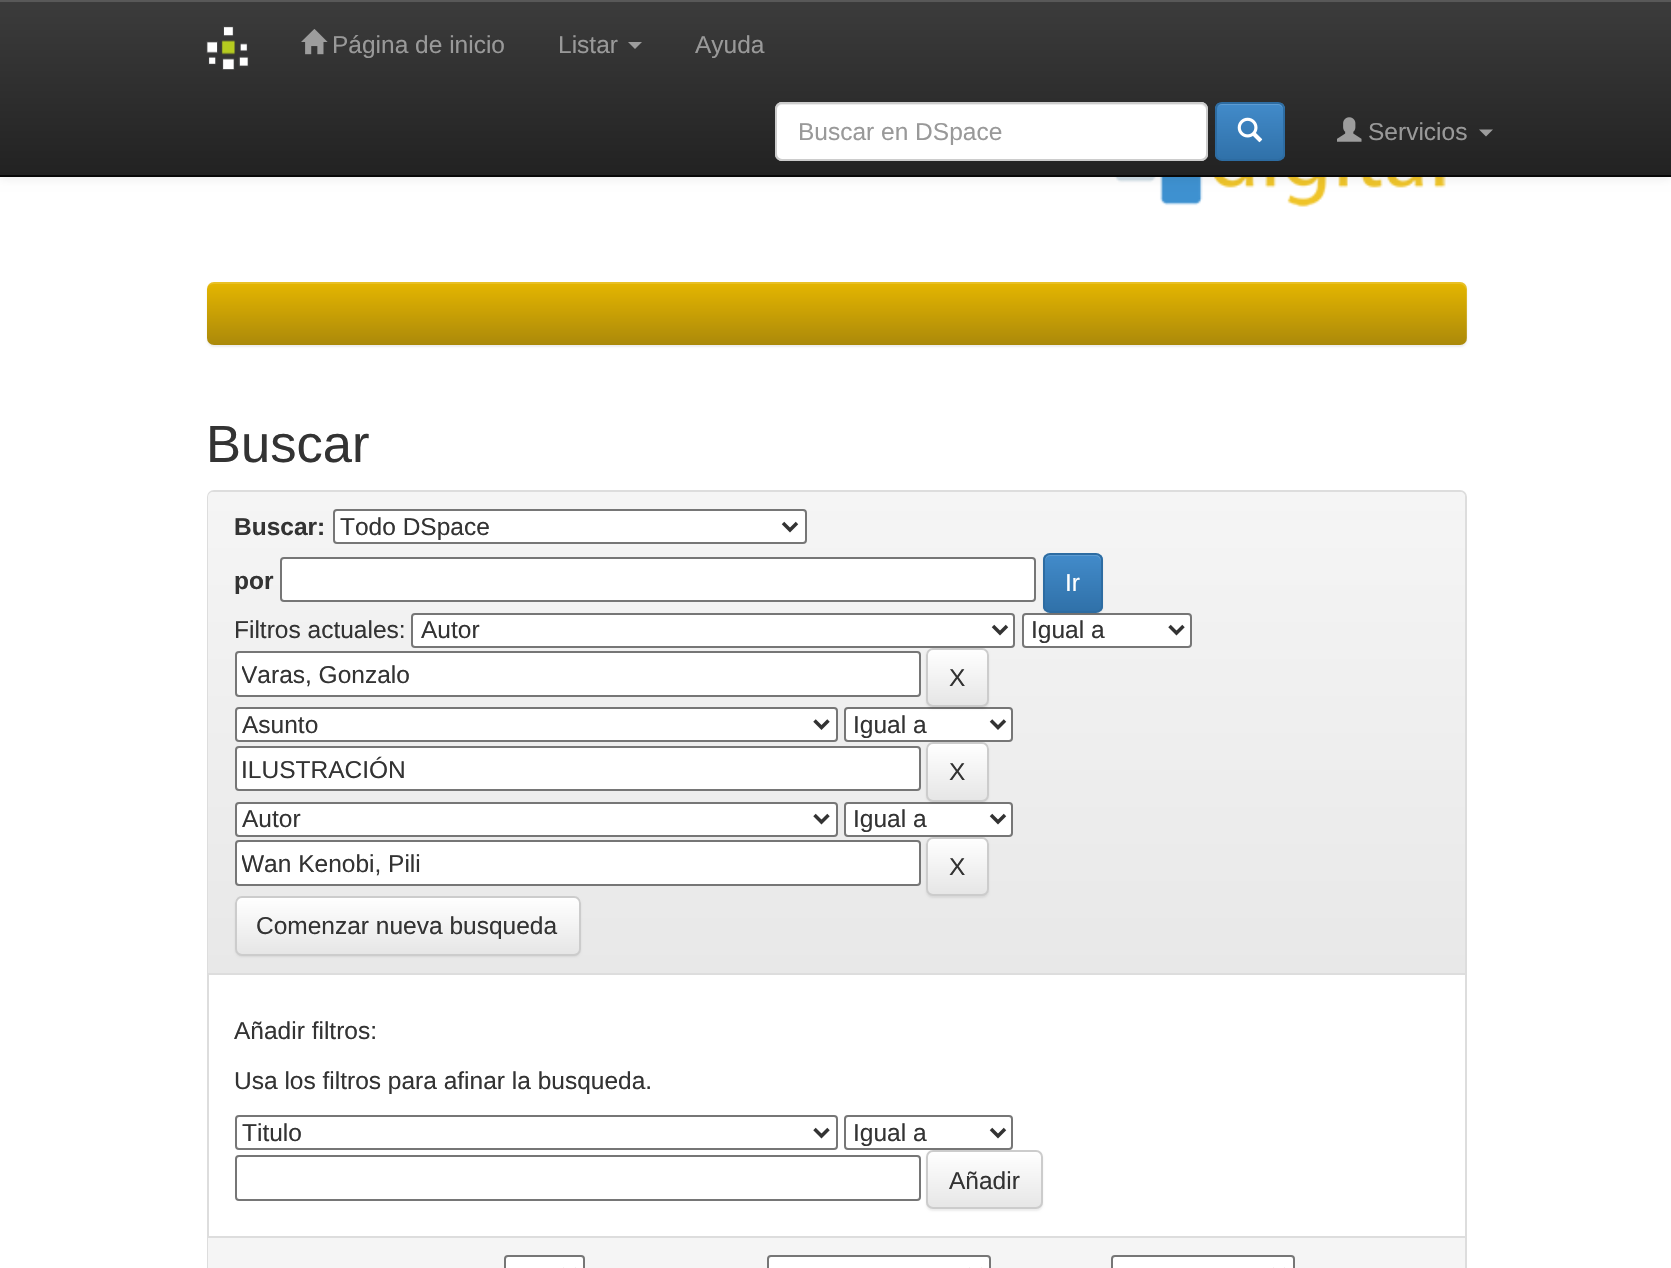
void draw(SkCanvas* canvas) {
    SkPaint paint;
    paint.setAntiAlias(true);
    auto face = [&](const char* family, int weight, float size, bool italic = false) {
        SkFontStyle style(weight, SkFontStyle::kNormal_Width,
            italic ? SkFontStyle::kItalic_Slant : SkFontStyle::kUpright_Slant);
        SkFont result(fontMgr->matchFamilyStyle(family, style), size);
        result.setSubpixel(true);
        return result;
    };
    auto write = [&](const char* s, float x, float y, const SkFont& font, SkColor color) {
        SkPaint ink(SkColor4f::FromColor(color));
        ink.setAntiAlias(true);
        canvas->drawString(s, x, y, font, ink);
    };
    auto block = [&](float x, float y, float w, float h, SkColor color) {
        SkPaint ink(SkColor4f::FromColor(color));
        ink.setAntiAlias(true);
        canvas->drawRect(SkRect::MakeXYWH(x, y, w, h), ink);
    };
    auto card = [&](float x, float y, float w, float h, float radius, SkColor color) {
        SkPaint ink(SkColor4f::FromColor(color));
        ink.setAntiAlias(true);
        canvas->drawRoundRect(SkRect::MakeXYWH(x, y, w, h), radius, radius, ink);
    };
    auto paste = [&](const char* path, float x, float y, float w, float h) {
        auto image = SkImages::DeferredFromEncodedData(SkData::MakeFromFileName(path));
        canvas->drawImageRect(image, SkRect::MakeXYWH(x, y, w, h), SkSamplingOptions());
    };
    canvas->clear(SK_ColorWHITE);
    paste("pic5.png", 1114, 177, 332, 30);
    paint.setColor(SkColorSetARGB(18, 0, 0, 0));
    paint.setMaskFilter(SkMaskFilter::MakeBlur(kNormal_SkBlurStyle, 4.5f));
    canvas->drawRect(SkRect::MakeXYWH(0, 2, 1671, 177), paint);
    paint.setMaskFilter(nullptr);
    {
        const SkColor colors[] = {SkColorSetRGB(60, 60, 60), SkColorSetRGB(34, 34, 34)};
        const float stops[] = {0, 1};
        const SkPoint ends[] = {{836, 0}, {836, 175}};
        paint.setShader(SkGradientShader::MakeLinear(ends, colors, stops, 2, SkTileMode::kClamp));
        paint.setAlpha(255);
    }
    canvas->drawRect(SkRect::MakeXYWH(0, 2, 1671, 173), paint);
    block(0, 0, 1671, 2, SkColorSetRGB(89, 89, 89));
    block(0, 175, 1671, 2, SkColorSetRGB(8, 8, 8));
    paste("pic1.png", 206, 26, 43, 44);
    paste("pic2.png", 301, 29, 27, 26);
    auto kFont1 = face("Liberation Sans", 400, 24.5f);
    write("Página de inicio", 332, 53, kFont1, SkColorSetRGB(153, 153, 153));
    write("Listar", 558, 53, kFont1, SkColorSetRGB(153, 153, 153));
    paint.setShader(nullptr);
    paint.setColor(SkColorSetRGB(157, 157, 157));
    canvas->drawPath(SkPathBuilder().moveTo(628, 42).lineTo(642, 42).lineTo(635, 49).close().detach(), paint);
    write("Ayuda", 695, 53, kFont1, SkColorSetRGB(153, 153, 153));
    card(775, 102, 433, 59, 7, SK_ColorWHITE);
    paint.setColor(SkColorSetRGB(236, 236, 236));
    canvas->drawPath(SkPathBuilder().moveTo(782, 105).lineTo(1200, 105).cubicTo(1203, 105, 1206, 107, 1206, 110).cubicTo(1206, 107, 1205, 103, 1201, 103).lineTo(782, 103).cubicTo(778, 103, 777, 107, 777, 110).cubicTo(777, 107, 779, 105, 782, 105).close().detach(), paint);
    paint.setStyle(SkPaint::kStroke_Style);
    paint.setStrokeWidth(2);
    paint.setColor(SkColorSetRGB(204, 204, 204));
    canvas->drawRoundRect(SkRect::MakeXYWH(776, 103, 431, 57), 6, 6, paint);
    write("Buscar en DSpace", 798, 140, kFont1, SkColorSetRGB(153, 153, 153));
    canvas->save();
    canvas->clipPath(SkPathBuilder().moveTo(1222, 102).lineTo(1278, 102).cubicTo(1282, 102, 1285, 105, 1285, 109).lineTo(1285, 154).cubicTo(1285, 158, 1282, 161, 1278, 161).lineTo(1222, 161).cubicTo(1218, 161, 1215, 158, 1215, 154).lineTo(1215, 109).cubicTo(1215, 105, 1218, 102, 1222, 102).close().detach(), true);
    paint.setStyle(SkPaint::kFill_Style);
    {
        const SkColor colors[] = {SkColorSetRGB(66, 139, 202), SkColorSetRGB(48, 113, 169)};
        const float stops[] = {0, 1};
        const SkPoint ends[] = {{1250, 103}, {1250, 159}};
        paint.setShader(SkGradientShader::MakeLinear(ends, colors, stops, 2, SkTileMode::kClamp));
        paint.setAlpha(255);
    }
    canvas->drawRect(SkRect::MakeXYWH(1215, 103, 70, 56), paint);
    canvas->restore();
    paint.setShader(nullptr);
    paint.setColor(SkColorSetARGB(38, 255, 255, 255));
    canvas->drawPath(SkPathBuilder().moveTo(1222, 105).lineTo(1278, 105).cubicTo(1280, 105, 1283, 107, 1283, 110).cubicTo(1283, 101, 1276, 103, 1268, 103).lineTo(1230, 103).cubicTo(1223, 103, 1216, 101, 1216, 110).cubicTo(1216, 107, 1219, 105, 1222, 105).close().detach(), paint);
    paint.setStyle(SkPaint::kStroke_Style);
    paint.setColor(SkColorSetRGB(45, 108, 162));
    canvas->drawRoundRect(SkRect::MakeXYWH(1216, 103, 68, 57), 6, 6, paint);
    paste("pic3.png", 1237, 117, 26, 26);
    paste("pic4.png", 1337, 117, 25, 25);
    write("Servicios", 1368, 140, kFont1, SkColorSetRGB(153, 153, 153));
    paint.setStyle(SkPaint::kFill_Style);
    paint.setColor(SkColorSetRGB(157, 157, 157));
    canvas->drawPath(SkPathBuilder().moveTo(1479, 129.5f).lineTo(1493, 129.5f).lineTo(1486, 136.5f).close().detach(), paint);
    paint.setColor(SkColorSetARGB(18, 0, 0, 0));
    paint.setMaskFilter(SkMaskFilter::MakeBlur(kNormal_SkBlurStyle, 1));
    canvas->drawRoundRect(SkRect::MakeXYWH(207, 284, 1260, 63), 7, 7, paint);
    paint.setMaskFilter(nullptr);
    {
        const SkColor colors[] = {SkColorSetRGB(229, 182, 0), SkColorSetRGB(171, 137, 10)};
        const float stops[] = {0, 1};
        const SkPoint ends[] = {{837, 282}, {837, 345}};
        paint.setShader(SkGradientShader::MakeLinear(ends, colors, stops, 2, SkTileMode::kClamp));
        paint.setAlpha(255);
    }
    canvas->drawRoundRect(SkRect::MakeXYWH(207, 282, 1260, 63), 7, 7, paint);
    paint.setShader(nullptr);
    paint.setColor(SkColorSetARGB(38, 255, 255, 255));
    canvas->drawPath(SkPathBuilder().moveTo(214, 284).lineTo(1460, 284).cubicTo(1463, 284, 1466, 287, 1466, 290).lineTo(1466, 340).lineTo(1465, 343).cubicTo(1466, 341, 1467, 340, 1467, 338).lineTo(1467, 289).cubicTo(1467, 285, 1464, 282, 1460, 282).lineTo(214, 282).cubicTo(211, 282, 208, 284, 207, 287).cubicTo(209, 285, 211, 284, 214, 284).close().detach(), paint);
    auto kFont2 = face("Liberation Sans", 400, 52.5f);
    write("Buscar", 206, 462, kFont2, SkColorSetRGB(51, 51, 51));
    paint.setStyle(SkPaint::kStroke_Style);
    paint.setColor(SkColorSetRGB(221, 221, 221));
    canvas->drawRoundRect(SkRect::MakeXYWH(208, 491, 1258, 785), 6, 6, paint);
    paint.setStyle(SkPaint::kFill_Style);
    {
        const SkColor colors[] = {SkColorSetRGB(245, 245, 245), SkColorSetRGB(232, 232, 232)};
        const float stops[] = {0, 1};
        const SkPoint ends[] = {{837, 492}, {837, 973}};
        paint.setShader(SkGradientShader::MakeLinear(ends, colors, stops, 2, SkTileMode::kClamp));
        paint.setAlpha(255);
    }
    canvas->drawPath(SkPathBuilder().moveTo(213, 492).lineTo(1460, 492).cubicTo(1463, 492, 1465, 494, 1465, 497).lineTo(1465, 973).lineTo(208, 973).lineTo(208, 497).cubicTo(208, 494, 210, 492, 213, 492).close().detach(), paint);
    block(208, 973, 1257, 2, SkColorSetRGB(221, 221, 221));
    auto kFont3 = face("Liberation Sans", 700, 24.5f);
    write("Buscar:", 234, 535, kFont3, SkColorSetRGB(51, 51, 51));
    paint.setShader(nullptr);
    paint.setColor(SK_ColorWHITE);
    canvas->drawRoundRect(SkRect::MakeXYWH(334, 510, 472, 33), 3, 3, paint);
    paint.setStyle(SkPaint::kStroke_Style);
    paint.setColor(SkColorSetRGB(118, 118, 118));
    canvas->drawRoundRect(SkRect::MakeXYWH(334, 510, 472, 33), 3, 3, paint);
    paint.setStrokeWidth(3.5f);
    paint.setColor(SkColorSetRGB(51, 51, 51));
    canvas->drawPath(SkPathBuilder().moveTo(783, 523).lineTo(790, 530).lineTo(797, 523).detach(), paint);
    write("Todo DSpace", 340, 535, kFont1, SkColorSetRGB(51, 51, 51));
    write("por", 234, 589, kFont3, SkColorSetRGB(51, 51, 51));
    paint.setStyle(SkPaint::kFill_Style);
    paint.setColor(SK_ColorWHITE);
    canvas->drawRoundRect(SkRect::MakeXYWH(281, 558, 754, 43), 3, 3, paint);
    paint.setStyle(SkPaint::kStroke_Style);
    paint.setStrokeWidth(2);
    paint.setColor(SkColorSetRGB(118, 118, 118));
    canvas->drawRoundRect(SkRect::MakeXYWH(281, 558, 754, 43), 3, 3, paint);
    paint.setStyle(SkPaint::kFill_Style);
    paint.setColor(SK_ColorWHITE);
    canvas->drawRoundRect(SkRect::MakeXYWH(1023, 614, 168, 33), 3, 3, paint);
    paint.setStyle(SkPaint::kStroke_Style);
    paint.setColor(SkColorSetRGB(118, 118, 118));
    canvas->drawRoundRect(SkRect::MakeXYWH(1023, 614, 168, 33), 3, 3, paint);
    paint.setStyle(SkPaint::kFill_Style);
    paint.setColor(SkColorSetARGB(18, 0, 0, 0));
    paint.setMaskFilter(SkMaskFilter::MakeBlur(kNormal_SkBlurStyle, 1));
    canvas->drawRoundRect(SkRect::MakeXYWH(1043, 555, 60, 59), 7, 7, paint);
    paint.setMaskFilter(nullptr);
    canvas->save();
    canvas->clipPath(SkPathBuilder().moveTo(1050, 553).lineTo(1096, 553).cubicTo(1100, 553, 1103, 556, 1103, 560).lineTo(1103, 606).cubicTo(1103, 610, 1100, 613, 1096, 613).lineTo(1050, 613).cubicTo(1046, 613, 1043, 610, 1043, 606).lineTo(1043, 560).cubicTo(1043, 556, 1046, 553, 1050, 553).close().detach(), true);
    {
        const SkColor colors[] = {SkColorSetRGB(66, 139, 202), SkColorSetRGB(48, 113, 169)};
        const float stops[] = {0, 1};
        const SkPoint ends[] = {{1073, 555}, {1073, 611}};
        paint.setShader(SkGradientShader::MakeLinear(ends, colors, stops, 2, SkTileMode::kClamp));
        paint.setAlpha(255);
    }
    canvas->drawRect(SkRect::MakeXYWH(1043, 555, 60, 56), paint);
    canvas->restore();
    paint.setShader(nullptr);
    paint.setColor(SkColorSetRGB(94, 156, 210));
    canvas->drawPath(SkPathBuilder().moveTo(1050, 556).lineTo(1096, 556).cubicTo(1098, 556, 1101, 559, 1101, 562).cubicTo(1101, 553, 1096, 555, 1088, 555).lineTo(1058, 555).cubicTo(1050, 555, 1045, 553, 1045, 562).cubicTo(1045, 559, 1047, 556, 1050, 556).close().detach(), paint);
    paint.setStyle(SkPaint::kStroke_Style);
    paint.setColor(SkColorSetRGB(45, 108, 162));
    canvas->drawRoundRect(SkRect::MakeXYWH(1044, 554, 58, 58), 6, 6, paint);
    write("Ir", 1065, 591, kFont1, SK_ColorWHITE);
    write("Filtros actuales:", 234, 638, kFont1, SkColorSetRGB(51, 51, 51));
    paint.setStyle(SkPaint::kFill_Style);
    paint.setColor(SK_ColorWHITE);
    canvas->drawRoundRect(SkRect::MakeXYWH(412, 614, 602, 33), 3, 3, paint);
    paint.setStyle(SkPaint::kStroke_Style);
    paint.setColor(SkColorSetRGB(118, 118, 118));
    canvas->drawRoundRect(SkRect::MakeXYWH(412, 614, 602, 33), 3, 3, paint);
    paint.setStrokeWidth(3.5f);
    paint.setColor(SkColorSetRGB(51, 51, 51));
    canvas->drawPath(SkPathBuilder().moveTo(993, 626).lineTo(1000, 633).lineTo(1007, 626).detach(), paint);
    write("Autor", 421, 638, kFont1, SkColorSetRGB(51, 51, 51));
    canvas->drawPath(SkPathBuilder().moveTo(1169.5f, 626).lineTo(1176.5f, 633).lineTo(1183.5f, 626).detach(), paint);
    write("Igual a", 1031, 638, kFont1, SkColorSetRGB(51, 51, 51));
    paint.setStyle(SkPaint::kFill_Style);
    paint.setColor(SK_ColorWHITE);
    canvas->drawRoundRect(SkRect::MakeXYWH(236, 652, 684, 44), 3, 3, paint);
    paint.setStyle(SkPaint::kStroke_Style);
    paint.setStrokeWidth(2);
    paint.setColor(SkColorSetRGB(118, 118, 118));
    canvas->drawRoundRect(SkRect::MakeXYWH(236, 652, 684, 44), 3, 3, paint);
    canvas->save();
    canvas->clipRect(SkRect::MakeXYWH(242, 656, 672, 35));
    write("Varas, Gonzalo", 241, 683, kFont1, SkColorSetRGB(51, 51, 51));
    canvas->restore();
    paint.setStyle(SkPaint::kFill_Style);
    paint.setColor(SK_ColorWHITE);
    canvas->drawRoundRect(SkRect::MakeXYWH(845, 708, 167, 33), 3, 3, paint);
    paint.setStyle(SkPaint::kStroke_Style);
    paint.setColor(SkColorSetRGB(118, 118, 118));
    canvas->drawRoundRect(SkRect::MakeXYWH(845, 708, 167, 33), 3, 3, paint);
    paint.setStyle(SkPaint::kFill_Style);
    paint.setColor(SkColorSetARGB(18, 0, 0, 0));
    paint.setMaskFilter(SkMaskFilter::MakeBlur(kNormal_SkBlurStyle, 1));
    canvas->drawRoundRect(SkRect::MakeXYWH(926, 649, 63, 60), 7, 7, paint);
    paint.setMaskFilter(nullptr);
    canvas->save();
    canvas->clipPath(SkPathBuilder().moveTo(933, 648).lineTo(982, 648).cubicTo(986, 648, 989, 651, 989, 655).lineTo(989, 700).cubicTo(989, 704, 986, 707, 982, 707).lineTo(933, 707).cubicTo(929, 707, 926, 704, 926, 700).lineTo(926, 655).cubicTo(926, 651, 929, 648, 933, 648).close().detach(), true);
    {
        const SkColor colors[] = {SK_ColorWHITE, SkColorSetRGB(230, 230, 230)};
        const float stops[] = {0, 1};
        const SkPoint ends[] = {{957, 649}, {957, 705}};
        paint.setShader(SkGradientShader::MakeLinear(ends, colors, stops, 2, SkTileMode::kClamp));
        paint.setAlpha(255);
    }
    canvas->drawRect(SkRect::MakeXYWH(926, 649, 63, 56), paint);
    canvas->restore();
    paint.setStyle(SkPaint::kStroke_Style);
    paint.setShader(nullptr);
    paint.setColor(SkColorSetRGB(204, 204, 204));
    canvas->drawRoundRect(SkRect::MakeXYWH(927, 649, 61, 57), 6, 6, paint);
    write("X", 949, 686, kFont1, SkColorSetRGB(51, 51, 51));
    paint.setStyle(SkPaint::kFill_Style);
    paint.setColor(SK_ColorWHITE);
    canvas->drawRoundRect(SkRect::MakeXYWH(236, 708, 601, 33), 3, 3, paint);
    paint.setStyle(SkPaint::kStroke_Style);
    paint.setColor(SkColorSetRGB(118, 118, 118));
    canvas->drawRoundRect(SkRect::MakeXYWH(236, 708, 601, 33), 3, 3, paint);
    paint.setStrokeWidth(3.5f);
    paint.setColor(SkColorSetRGB(51, 51, 51));
    canvas->drawPath(SkPathBuilder().moveTo(814.5f, 720.5f).lineTo(821.5f, 727.5f).lineTo(828.5f, 720.5f).detach(), paint);
    write("Asunto", 242, 733, kFont1, SkColorSetRGB(51, 51, 51));
    canvas->drawPath(SkPathBuilder().moveTo(991, 720.5f).lineTo(998, 727.5f).lineTo(1005, 720.5f).detach(), paint);
    write("Igual a", 853, 733, kFont1, SkColorSetRGB(51, 51, 51));
    paint.setStyle(SkPaint::kFill_Style);
    paint.setColor(SK_ColorWHITE);
    canvas->drawRoundRect(SkRect::MakeXYWH(236, 747, 684, 43), 3, 3, paint);
    paint.setStyle(SkPaint::kStroke_Style);
    paint.setStrokeWidth(2);
    paint.setColor(SkColorSetRGB(118, 118, 118));
    canvas->drawRoundRect(SkRect::MakeXYWH(236, 747, 684, 43), 3, 3, paint);
    write("ILUSTRACIÓN", 241, 778, kFont1, SkColorSetRGB(51, 51, 51));
    paint.setStyle(SkPaint::kFill_Style);
    paint.setColor(SK_ColorWHITE);
    canvas->drawRoundRect(SkRect::MakeXYWH(845, 803, 167, 33), 3, 3, paint);
    paint.setStyle(SkPaint::kStroke_Style);
    paint.setColor(SkColorSetRGB(118, 118, 118));
    canvas->drawRoundRect(SkRect::MakeXYWH(845, 803, 167, 33), 3, 3, paint);
    paint.setStyle(SkPaint::kFill_Style);
    paint.setColor(SkColorSetARGB(18, 0, 0, 0));
    paint.setMaskFilter(SkMaskFilter::MakeBlur(kNormal_SkBlurStyle, 1));
    canvas->drawRoundRect(SkRect::MakeXYWH(926, 744, 63, 59), 7, 7, paint);
    paint.setMaskFilter(nullptr);
    canvas->save();
    canvas->clipPath(SkPathBuilder().moveTo(933, 742).lineTo(982, 742).cubicTo(986, 742, 989, 745, 989, 749).lineTo(989, 795).cubicTo(989, 799, 986, 802, 982, 802).lineTo(933, 802).cubicTo(929, 802, 926, 799, 926, 795).lineTo(926, 749).cubicTo(926, 745, 929, 742, 933, 742).close().detach(), true);
    {
        const SkColor colors[] = {SK_ColorWHITE, SkColorSetRGB(230, 230, 230)};
        const float stops[] = {0, 1};
        const SkPoint ends[] = {{957, 744}, {957, 800}};
        paint.setShader(SkGradientShader::MakeLinear(ends, colors, stops, 2, SkTileMode::kClamp));
        paint.setAlpha(255);
    }
    canvas->drawRect(SkRect::MakeXYWH(926, 744, 63, 56), paint);
    canvas->restore();
    paint.setStyle(SkPaint::kStroke_Style);
    paint.setShader(nullptr);
    paint.setColor(SkColorSetRGB(204, 204, 204));
    canvas->drawRoundRect(SkRect::MakeXYWH(927, 743, 61, 58), 6, 6, paint);
    write("X", 949, 780, kFont1, SkColorSetRGB(51, 51, 51));
    paint.setStyle(SkPaint::kFill_Style);
    paint.setColor(SK_ColorWHITE);
    canvas->drawRoundRect(SkRect::MakeXYWH(236, 803, 601, 33), 3, 3, paint);
    paint.setStyle(SkPaint::kStroke_Style);
    paint.setColor(SkColorSetRGB(118, 118, 118));
    canvas->drawRoundRect(SkRect::MakeXYWH(236, 803, 601, 33), 3, 3, paint);
    paint.setStrokeWidth(3.5f);
    paint.setColor(SkColorSetRGB(51, 51, 51));
    canvas->drawPath(SkPathBuilder().moveTo(814.5f, 815).lineTo(821.5f, 822).lineTo(828.5f, 815).detach(), paint);
    write("Autor", 242, 827, kFont1, SkColorSetRGB(51, 51, 51));
    canvas->drawPath(SkPathBuilder().moveTo(991, 815).lineTo(998, 822).lineTo(1005, 815).detach(), paint);
    write("Igual a", 853, 827, kFont1, SkColorSetRGB(51, 51, 51));
    paint.setStyle(SkPaint::kFill_Style);
    paint.setColor(SK_ColorWHITE);
    canvas->drawRoundRect(SkRect::MakeXYWH(236, 841, 684, 44), 3, 3, paint);
    paint.setStyle(SkPaint::kStroke_Style);
    paint.setStrokeWidth(2);
    paint.setColor(SkColorSetRGB(118, 118, 118));
    canvas->drawRoundRect(SkRect::MakeXYWH(236, 841, 684, 44), 3, 3, paint);
    canvas->save();
    canvas->clipRect(SkRect::MakeXYWH(242, 845, 672, 35));
    write("Wan Kenobi, Pili", 241, 872, kFont1, SkColorSetRGB(51, 51, 51));
    canvas->restore();
    paint.setStyle(SkPaint::kFill_Style);
    paint.setColor(SkColorSetARGB(18, 0, 0, 0));
    paint.setMaskFilter(SkMaskFilter::MakeBlur(kNormal_SkBlurStyle, 1));
    canvas->drawRoundRect(SkRect::MakeXYWH(926, 838, 63, 60), 7, 7, paint);
    paint.setMaskFilter(nullptr);
    canvas->save();
    canvas->clipPath(SkPathBuilder().moveTo(933, 837).lineTo(982, 837).cubicTo(986, 837, 989, 840, 989, 844).lineTo(989, 889).cubicTo(989, 893, 986, 896, 982, 896).lineTo(933, 896).cubicTo(929, 896, 926, 893, 926, 889).lineTo(926, 844).cubicTo(926, 840, 929, 837, 933, 837).close().detach(), true);
    {
        const SkColor colors[] = {SK_ColorWHITE, SkColorSetRGB(230, 230, 230)};
        const float stops[] = {0, 1};
        const SkPoint ends[] = {{957, 838}, {957, 894}};
        paint.setShader(SkGradientShader::MakeLinear(ends, colors, stops, 2, SkTileMode::kClamp));
        paint.setAlpha(255);
    }
    canvas->drawRect(SkRect::MakeXYWH(926, 838, 63, 56), paint);
    canvas->restore();
    paint.setStyle(SkPaint::kStroke_Style);
    paint.setShader(nullptr);
    paint.setColor(SkColorSetRGB(204, 204, 204));
    canvas->drawRoundRect(SkRect::MakeXYWH(927, 838, 61, 57), 6, 6, paint);
    write("X", 949, 875, kFont1, SkColorSetRGB(51, 51, 51));
    paint.setStyle(SkPaint::kFill_Style);
    paint.setColor(SkColorSetARGB(18, 0, 0, 0));
    paint.setMaskFilter(SkMaskFilter::MakeBlur(kNormal_SkBlurStyle, 1));
    canvas->drawRoundRect(SkRect::MakeXYWH(235, 898, 346, 59), 7, 7, paint);
    paint.setMaskFilter(nullptr);
    canvas->save();
    canvas->clipPath(SkPathBuilder().moveTo(242, 896).lineTo(574, 896).cubicTo(578, 896, 581, 899, 581, 903).lineTo(581, 949).cubicTo(581, 953, 578, 956, 574, 956).lineTo(242, 956).cubicTo(238, 956, 235, 953, 235, 949).lineTo(235, 903).cubicTo(235, 899, 238, 896, 242, 896).close().detach(), true);
    {
        const SkColor colors[] = {SK_ColorWHITE, SkColorSetRGB(230, 230, 230)};
        const float stops[] = {0, 1};
        const SkPoint ends[] = {{408, 898}, {408, 954}};
        paint.setShader(SkGradientShader::MakeLinear(ends, colors, stops, 2, SkTileMode::kClamp));
        paint.setAlpha(255);
    }
    canvas->drawRect(SkRect::MakeXYWH(235, 898, 346, 56), paint);
    canvas->restore();
    paint.setStyle(SkPaint::kStroke_Style);
    paint.setShader(nullptr);
    paint.setColor(SkColorSetRGB(204, 204, 204));
    canvas->drawRoundRect(SkRect::MakeXYWH(236, 897, 344, 58), 6, 6, paint);
    write("Comenzar nueva busqueda", 256, 934, kFont1, SkColorSetRGB(51, 51, 51));
    write("Añadir filtros:", 234, 1039, kFont1, SkColorSetRGB(51, 51, 51));
    write("Usa los filtros para afinar la busqueda.", 234, 1089, kFont1, SkColorSetRGB(51, 51, 51));
    paint.setColor(SkColorSetRGB(118, 118, 118));
    canvas->drawRoundRect(SkRect::MakeXYWH(236, 1116, 601, 33), 3, 3, paint);
    paint.setStrokeWidth(3.5f);
    paint.setColor(SkColorSetRGB(51, 51, 51));
    canvas->drawPath(SkPathBuilder().moveTo(814.5f, 1129).lineTo(821.5f, 1136).lineTo(828.5f, 1129).detach(), paint);
    write("Titulo", 242, 1141, kFont1, SkColorSetRGB(51, 51, 51));
    paint.setStrokeWidth(2);
    paint.setColor(SkColorSetRGB(118, 118, 118));
    canvas->drawRoundRect(SkRect::MakeXYWH(845, 1116, 167, 33), 3, 3, paint);
    paint.setStrokeWidth(3.5f);
    paint.setColor(SkColorSetRGB(51, 51, 51));
    canvas->drawPath(SkPathBuilder().moveTo(991, 1129).lineTo(998, 1136).lineTo(1005, 1129).detach(), paint);
    write("Igual a", 853, 1141, kFont1, SkColorSetRGB(51, 51, 51));
    paint.setStrokeWidth(2);
    paint.setColor(SkColorSetRGB(118, 118, 118));
    canvas->drawRoundRect(SkRect::MakeXYWH(236, 1156, 684, 44), 3, 3, paint);
    paint.setStyle(SkPaint::kFill_Style);
    paint.setColor(SkColorSetARGB(18, 0, 0, 0));
    paint.setMaskFilter(SkMaskFilter::MakeBlur(kNormal_SkBlurStyle, 1));
    canvas->drawRoundRect(SkRect::MakeXYWH(926, 1152, 117, 59), 7, 7, paint);
    paint.setMaskFilter(nullptr);
    canvas->save();
    canvas->clipPath(SkPathBuilder().moveTo(933, 1150).lineTo(1036, 1150).cubicTo(1040, 1150, 1043, 1153, 1043, 1157).lineTo(1043, 1202).cubicTo(1043, 1206, 1040, 1209, 1036, 1209).lineTo(933, 1209).cubicTo(929, 1209, 926, 1206, 926, 1202).lineTo(926, 1157).cubicTo(926, 1153, 929, 1150, 933, 1150).close().detach(), true);
    {
        const SkColor colors[] = {SK_ColorWHITE, SkColorSetRGB(230, 230, 230)};
        const float stops[] = {0, 1};
        const SkPoint ends[] = {{984, 1152}, {984, 1208}};
        paint.setShader(SkGradientShader::MakeLinear(ends, colors, stops, 2, SkTileMode::kClamp));
        paint.setAlpha(255);
    }
    canvas->drawRect(SkRect::MakeXYWH(926, 1152, 117, 56), paint);
    canvas->restore();
    paint.setStyle(SkPaint::kStroke_Style);
    paint.setShader(nullptr);
    paint.setColor(SkColorSetRGB(204, 204, 204));
    canvas->drawRoundRect(SkRect::MakeXYWH(927, 1151, 115, 57), 6, 6, paint);
    write("Añadir", 949, 1189, kFont1, SkColorSetRGB(51, 51, 51));
    block(208, 1238, 1257, 30, SkColorSetRGB(245, 245, 245));
    block(208, 1236, 1257, 2, SkColorSetRGB(221, 221, 221));
    paint.setStyle(SkPaint::kFill_Style);
    paint.setColor(SK_ColorWHITE);
    canvas->drawRoundRect(SkRect::MakeXYWH(505, 1256, 79, 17), 3, 3, paint);
    paint.setStyle(SkPaint::kStroke_Style);
    paint.setColor(SkColorSetRGB(118, 118, 118));
    canvas->drawRoundRect(SkRect::MakeXYWH(505, 1256, 79, 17), 3, 3, paint);
    paint.setStrokeWidth(3.5f);
    paint.setColor(SkColorSetRGB(51, 51, 51));
    canvas->drawPath(SkPathBuilder().moveTo(562.5f, 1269).lineTo(569.5f, 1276).lineTo(576.5f, 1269).detach(), paint);
    paint.setStyle(SkPaint::kFill_Style);
    paint.setColor(SK_ColorWHITE);
    canvas->drawRoundRect(SkRect::MakeXYWH(768, 1256, 222, 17), 3, 3, paint);
    paint.setStyle(SkPaint::kStroke_Style);
    paint.setStrokeWidth(2);
    paint.setColor(SkColorSetRGB(118, 118, 118));
    canvas->drawRoundRect(SkRect::MakeXYWH(768, 1256, 222, 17), 3, 3, paint);
    paint.setStrokeWidth(3.5f);
    paint.setColor(SkColorSetRGB(51, 51, 51));
    canvas->drawPath(SkPathBuilder().moveTo(968.5f, 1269).lineTo(975.5f, 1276).lineTo(982.5f, 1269).detach(), paint);
    paint.setStyle(SkPaint::kFill_Style);
    paint.setColor(SK_ColorWHITE);
    canvas->drawRoundRect(SkRect::MakeXYWH(1112, 1256, 182, 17), 3, 3, paint);
    paint.setStyle(SkPaint::kStroke_Style);
    paint.setStrokeWidth(2);
    paint.setColor(SkColorSetRGB(118, 118, 118));
    canvas->drawRoundRect(SkRect::MakeXYWH(1112, 1256, 182, 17), 3, 3, paint);
    paint.setStrokeWidth(3.5f);
    paint.setColor(SkColorSetRGB(51, 51, 51));
    canvas->drawPath(SkPathBuilder().moveTo(1272, 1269).lineTo(1279, 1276).lineTo(1286, 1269).detach(), paint);
}
